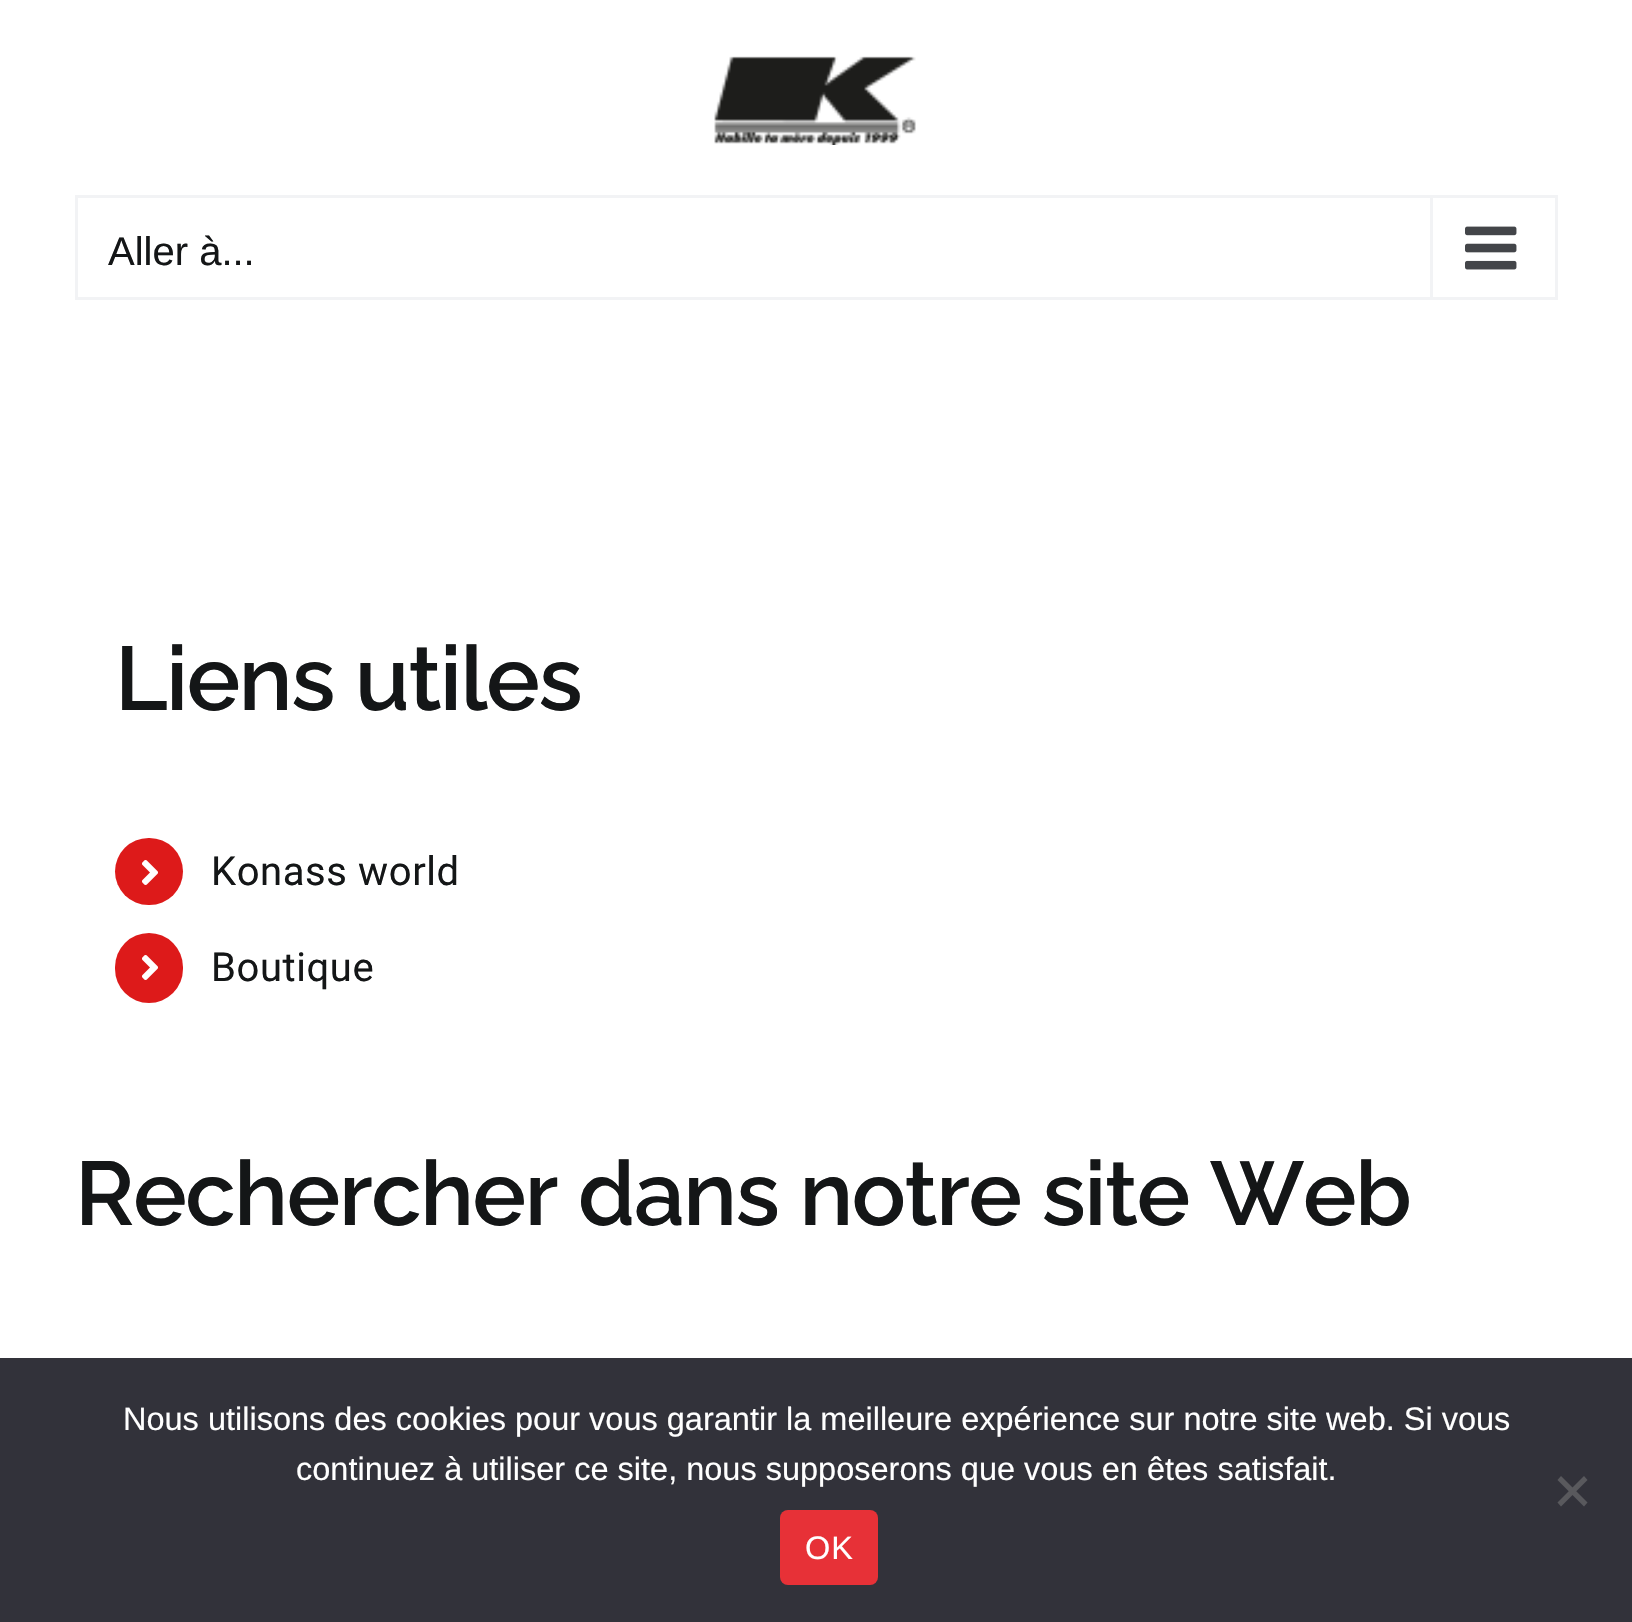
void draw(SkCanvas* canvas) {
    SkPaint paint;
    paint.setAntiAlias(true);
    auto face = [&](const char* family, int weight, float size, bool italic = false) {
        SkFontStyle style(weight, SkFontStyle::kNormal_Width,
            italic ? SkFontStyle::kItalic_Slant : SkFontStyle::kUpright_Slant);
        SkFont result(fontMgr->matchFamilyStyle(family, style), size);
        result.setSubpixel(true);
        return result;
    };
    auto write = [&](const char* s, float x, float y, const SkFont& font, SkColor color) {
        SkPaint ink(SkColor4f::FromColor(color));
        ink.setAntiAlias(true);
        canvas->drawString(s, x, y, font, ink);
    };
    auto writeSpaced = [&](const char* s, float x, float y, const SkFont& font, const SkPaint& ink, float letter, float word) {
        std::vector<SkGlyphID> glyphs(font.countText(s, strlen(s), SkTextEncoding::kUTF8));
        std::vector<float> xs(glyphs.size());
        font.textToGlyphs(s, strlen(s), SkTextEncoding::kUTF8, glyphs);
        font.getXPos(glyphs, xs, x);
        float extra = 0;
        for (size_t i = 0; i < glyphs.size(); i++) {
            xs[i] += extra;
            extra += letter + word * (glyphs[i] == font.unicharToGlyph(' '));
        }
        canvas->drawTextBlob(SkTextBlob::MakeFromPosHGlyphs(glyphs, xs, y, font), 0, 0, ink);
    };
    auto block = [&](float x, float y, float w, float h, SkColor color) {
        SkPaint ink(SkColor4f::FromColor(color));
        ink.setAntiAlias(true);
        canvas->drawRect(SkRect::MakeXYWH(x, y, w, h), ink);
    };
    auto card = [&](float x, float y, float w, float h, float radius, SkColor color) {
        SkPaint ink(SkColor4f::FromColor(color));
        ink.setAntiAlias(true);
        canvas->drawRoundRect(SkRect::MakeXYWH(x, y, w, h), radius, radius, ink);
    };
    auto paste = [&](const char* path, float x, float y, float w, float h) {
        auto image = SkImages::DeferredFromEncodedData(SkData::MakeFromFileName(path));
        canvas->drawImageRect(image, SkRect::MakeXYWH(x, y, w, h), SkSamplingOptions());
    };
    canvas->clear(SK_ColorWHITE);
    paste("pic1.png", 714, 56, 202, 89);
    paint.setStyle(SkPaint::kStroke_Style);
    paint.setStrokeWidth(3);
    paint.setColor(SkColorSetRGB(242, 243, 245));
    canvas->drawRect(SkRect::MakeXYWH(76.5f, 196.5f, 1480, 102), paint);
    auto kFont1 = face("Liberation Sans", 400, 40);
    write("Aller à...", 108, 265, kFont1, SkColorSetRGB(20, 22, 23));
    block(1430, 198, 3, 100, SkColorSetRGB(242, 243, 245));
    paste("pic2.png", 1465, 226, 52, 44);
    auto kFont2 = face("Raleway", 100, 90);
    paint.setStyle(SkPaint::kFill_Style);
    paint.setColor(SkColorSetRGB(20, 22, 23));
    writeSpaced("Liens utiles", 115, 710, kFont2, paint, -1.35f, 0);
    card(115, 838, 68, 67, 33.5f, SkColorSetRGB(221, 26, 26));
    paste("pic3.png", 142, 860, 16, 25);
    auto kFont3 = face("Roboto", 400, 40);
    writeSpaced("Konass world", 211, 885, kFont3, paint, 0.6f, 0);
    card(115, 933, 68, 70, 34, SkColorSetRGB(221, 26, 26));
    paste("pic3.png", 142, 955, 16, 25);
    writeSpaced("Boutique", 211, 981, kFont3, paint, 0.6f, 0);
    writeSpaced("Rechercher dans notre site Web", 75, 1225, kFont2, paint, -1.35f, 0);
    block(0, 1358, 1632, 264, SkColorSetRGB(50, 50, 58));
    auto kFont4 = face("Liberation Sans", 400, 32.5f);
    write("Nous utilisons des cookies pour vous garantir la meilleure expérience sur notre site web. Si vous", 123, 1430, kFont4, SK_ColorWHITE);
    write("continuez à utiliser ce site, nous supposerons que vous en êtes satisfait.", 296, 1480, kFont4, SK_ColorWHITE);
    paint.setColor(SkColorSetRGB(89, 89, 93));
    canvas->drawPath(SkPathBuilder().moveTo(1584, 1476).lineTo(1587.5f, 1480).lineTo(1561, 1506.5f).lineTo(1557.5f, 1502.5f).close().detach(), paint);
    canvas->drawPath(SkPathBuilder().moveTo(1557.5f, 1480).lineTo(1561, 1476).lineTo(1587.5f, 1502.5f).lineTo(1584, 1506.5f).close().detach(), paint);
    card(780, 1510, 98, 75, 8, SkColorSetRGB(231, 49, 55));
    paint.setColor(SK_ColorWHITE);
    writeSpaced("OK", 805, 1559, kFont4, paint, 1, 0);
}
